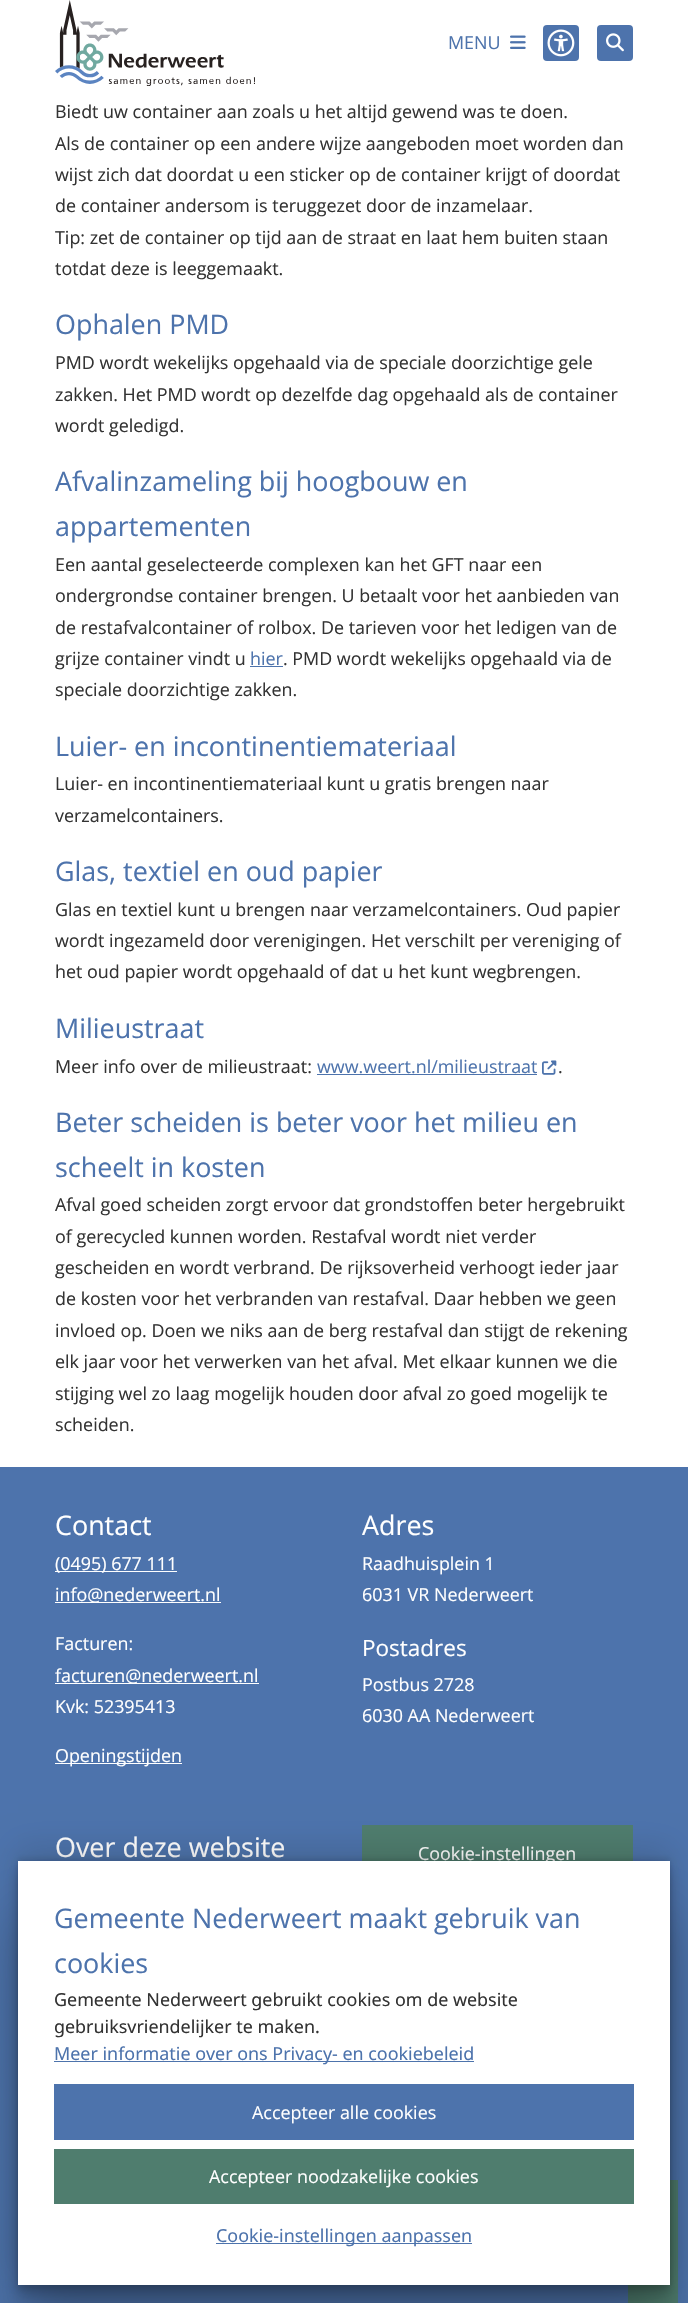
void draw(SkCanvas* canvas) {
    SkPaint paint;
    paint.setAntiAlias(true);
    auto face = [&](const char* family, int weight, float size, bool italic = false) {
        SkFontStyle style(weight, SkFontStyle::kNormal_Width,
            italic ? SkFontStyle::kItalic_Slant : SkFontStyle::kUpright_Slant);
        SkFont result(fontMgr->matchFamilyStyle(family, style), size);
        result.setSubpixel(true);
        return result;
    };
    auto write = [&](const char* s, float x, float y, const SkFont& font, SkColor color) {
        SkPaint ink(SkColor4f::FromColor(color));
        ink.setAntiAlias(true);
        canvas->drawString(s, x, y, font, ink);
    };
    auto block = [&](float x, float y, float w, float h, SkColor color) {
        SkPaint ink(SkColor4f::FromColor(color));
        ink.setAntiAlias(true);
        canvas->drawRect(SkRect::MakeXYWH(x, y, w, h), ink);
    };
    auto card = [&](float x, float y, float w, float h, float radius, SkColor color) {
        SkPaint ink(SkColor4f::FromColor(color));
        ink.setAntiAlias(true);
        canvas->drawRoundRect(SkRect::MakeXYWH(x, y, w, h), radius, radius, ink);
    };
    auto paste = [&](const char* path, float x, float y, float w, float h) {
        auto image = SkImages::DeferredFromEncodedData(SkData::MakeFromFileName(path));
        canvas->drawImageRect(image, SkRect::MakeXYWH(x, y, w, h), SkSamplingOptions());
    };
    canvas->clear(SK_ColorWHITE);
    paste("pic1.png", 55, 0, 200, 86);
    auto kFont1 = face("Open Sans", 400, 17.9f);
    write("MENU", 448, 49, kFont1, SkColorSetRGB(77, 115, 172));
    paste("pic2.png", 510, 35, 16, 14);
    card(543, 25, 36, 36, 4, SkColorSetRGB(77, 115, 172));
    paste("pic3.png", 547, 29, 28, 28);
    card(597, 25, 36, 36, 4, SkColorSetRGB(77, 115, 172));
    paste("pic4.png", 606, 33, 18, 19);
    write("Biedt uw container aan zoals u het altijd gewend was te doen.", 55, 118, kFont1, SkColorSetRGB(51, 51, 51));
    write("Als de container op een andere wijze aangeboden moet worden dan", 55, 150, kFont1, SkColorSetRGB(51, 51, 51));
    write("wijst zich dat doordat u een sticker op de container krijgt of doordat", 55, 181, kFont1, SkColorSetRGB(51, 51, 51));
    write("de container andersom is teruggezet door de inzamelaar.", 55, 212, kFont1, SkColorSetRGB(51, 51, 51));
    write("Tip: zet de container op tijd aan de straat en laat hem buiten staan", 55, 244, kFont1, SkColorSetRGB(51, 51, 51));
    write("totdat deze is leeggemaakt.", 55, 275, kFont1, SkColorSetRGB(51, 51, 51));
    auto kFont2 = face("Open Sans", 400, 26.9f);
    write("Ophalen PMD", 55, 334, kFont2, SkColorSetRGB(77, 115, 172));
    write("PMD wordt wekelijks opgehaald via de speciale doorzichtige gele", 55, 369, kFont1, SkColorSetRGB(51, 51, 51));
    write("zakken. Het PMD wordt op dezelfde dag opgehaald als de container", 55, 401, kFont1, SkColorSetRGB(51, 51, 51));
    write("wordt geledigd.", 55, 432, kFont1, SkColorSetRGB(51, 51, 51));
    write("Afvalinzameling bij hoogbouw en", 55, 491, kFont2, SkColorSetRGB(77, 115, 172));
    write("appartementen", 55, 536, kFont2, SkColorSetRGB(77, 115, 172));
    write("Een aantal geselecteerde complexen kan het GFT naar een", 55, 571, kFont1, SkColorSetRGB(51, 51, 51));
    write("ondergrondse container brengen. U betaalt voor het aanbieden van", 55, 602, kFont1, SkColorSetRGB(51, 51, 51));
    write("de restafvalcontainer of rolbox. De tarieven voor het ledigen van de", 55, 634, kFont1, SkColorSetRGB(51, 51, 51));
    write("grijze container vindt u", 55, 665, kFont1, SkColorSetRGB(51, 51, 51));
    write("hier", 250, 665, kFont1, SkColorSetRGB(77, 115, 172));
    block(250, 666, 33, 1, SkColorSetRGB(77, 115, 172));
    write(". PMD wordt wekelijks opgehaald via de", 283, 665, kFont1, SkColorSetRGB(51, 51, 51));
    write("speciale doorzichtige zakken.", 55, 696, kFont1, SkColorSetRGB(51, 51, 51));
    write("Luier- en incontinentiemateriaal", 55, 756, kFont2, SkColorSetRGB(77, 115, 172));
    write("Luier- en incontinentiemateriaal kunt u gratis brengen naar", 55, 790, kFont1, SkColorSetRGB(51, 51, 51));
    write("verzamelcontainers.", 55, 822, kFont1, SkColorSetRGB(51, 51, 51));
    write("Glas, textiel en oud papier", 55, 881, kFont2, SkColorSetRGB(77, 115, 172));
    write("Glas en textiel kunt u brengen naar verzamelcontainers. Oud papier", 55, 916, kFont1, SkColorSetRGB(51, 51, 51));
    write("wordt ingezameld door verenigingen. Het verschilt per vereniging of", 55, 947, kFont1, SkColorSetRGB(51, 51, 51));
    write("het oud papier wordt opgehaald of dat u het kunt wegbrengen.", 55, 978, kFont1, SkColorSetRGB(51, 51, 51));
    write("Milieustraat", 55, 1038, kFont2, SkColorSetRGB(77, 115, 172));
    write("Meer info over de milieustraat:", 55, 1073, kFont1, SkColorSetRGB(51, 51, 51));
    write("www.weert.nl/milieustraat", 317, 1073, kFont1, SkColorSetRGB(77, 115, 172));
    block(317, 1074, 220, 1, SkColorSetRGB(77, 115, 172));
    paste("pic5.png", 542, 1060, 15, 15);
    write(".", 558, 1073, kFont1, SkColorSetRGB(51, 51, 51));
    write("Beter scheiden is beter voor het milieu en", 55, 1132, kFont2, SkColorSetRGB(77, 115, 172));
    write("scheelt in kosten", 55, 1177, kFont2, SkColorSetRGB(77, 115, 172));
    write("Afval goed scheiden zorgt ervoor dat grondstoffen beter hergebruikt", 55, 1211, kFont1, SkColorSetRGB(51, 51, 51));
    write("of gerecycled kunnen worden. Restafval wordt niet verder", 55, 1243, kFont1, SkColorSetRGB(51, 51, 51));
    write("gescheiden en wordt verbrand. De rijksoverheid verhoogt ieder jaar", 55, 1274, kFont1, SkColorSetRGB(51, 51, 51));
    write("de kosten voor het verbranden van restafval. Daar hebben we geen", 55, 1305, kFont1, SkColorSetRGB(51, 51, 51));
    write("invloed op. Doen we niks aan de berg restafval dan stijgt de rekening", 55, 1337, kFont1, SkColorSetRGB(51, 51, 51));
    write("elk jaar voor het verwerken van het afval. Met elkaar kunnen we die", 55, 1368, kFont1, SkColorSetRGB(51, 51, 51));
    write("stijging wel zo laag mogelijk houden door afval zo goed mogelijk te", 55, 1400, kFont1, SkColorSetRGB(51, 51, 51));
    write("scheiden.", 55, 1431, kFont1, SkColorSetRGB(51, 51, 51));
    block(0, 1467, 688, 836, SkColorSetRGB(77, 115, 172));
    write("Contact", 55, 1535, kFont2, SK_ColorWHITE);
    block(55, 1571, 122, 1, SK_ColorWHITE);
    write("(0495) 677 111", 55, 1570, kFont1, SK_ColorWHITE);
    block(55, 1602, 166, 1, SK_ColorWHITE);
    write("info@nederweert.nl", 55, 1601, kFont1, SK_ColorWHITE);
    write("Facturen:", 55, 1650, kFont1, SK_ColorWHITE);
    block(55, 1683, 204, 1, SK_ColorWHITE);
    write("facturen@nederweert.nl", 55, 1682, kFont1, SK_ColorWHITE);
    write("Kvk: 52395413", 55, 1713, kFont1, SK_ColorWHITE);
    block(55, 1763, 127, 1, SK_ColorWHITE);
    write("Openingstijden", 55, 1762, kFont1, SK_ColorWHITE);
    write("Adres", 362, 1535, kFont2, SK_ColorWHITE);
    write("Raadhuisplein 1", 362, 1570, kFont1, SK_ColorWHITE);
    write("6031 VR Nederweert", 362, 1601, kFont1, SK_ColorWHITE);
    auto kFont3 = face("Open Sans", 400, 22.5f);
    write("Postadres", 362, 1656, kFont3, SK_ColorWHITE);
    write("Postbus 2728", 362, 1691, kFont1, SK_ColorWHITE);
    write("6030 AA Nederweert", 362, 1722, kFont1, SK_ColorWHITE);
    write("Over deze website", 55, 1857, kFont2, SK_ColorWHITE);
    block(362, 1825, 271, 36, SkColorSetRGB(79, 125, 110));
    write("Cookie-instellingen", 418, 1860, kFont1, SK_ColorWHITE);
    block(628, 2180, 50, 123, SkColorSetRGB(79, 125, 110));
    paint.setColor(SkColorSetARGB(23, 0, 0, 0));
    paint.setMaskFilter(SkMaskFilter::MakeBlur(kNormal_SkBlurStyle, 2.5f));
    canvas->drawRect(SkRect::MakeXYWH(18, 1858, 652, 424), paint);
    paint.setMaskFilter(nullptr);
    paint.setColor(SkColorSetARGB(43, 0, 0, 0));
    paint.setMaskFilter(SkMaskFilter::MakeBlur(kNormal_SkBlurStyle, 6.5f));
    canvas->drawRect(SkRect::MakeXYWH(18, 1873, 652, 424), paint);
    paint.setMaskFilter(nullptr);
    paint.setColor(SkColorSetARGB(31, 0, 0, 0));
    paint.setMaskFilter(SkMaskFilter::MakeBlur(kNormal_SkBlurStyle, 3));
    canvas->drawRect(SkRect::MakeXYWH(18, 1865, 652, 424), paint);
    paint.setMaskFilter(nullptr);
    paint.setMaskFilter(SkMaskFilter::MakeBlur(kNormal_SkBlurStyle, 15));
    canvas->drawRect(SkRect::MakeXYWH(18, 1849, 652, 424), paint);
    paint.setMaskFilter(nullptr);
    paint.setColor(SkColorSetARGB(64, 0, 0, 0));
    paint.setMaskFilter(SkMaskFilter::MakeBlur(kNormal_SkBlurStyle, 27.5f));
    canvas->drawRect(SkRect::MakeXYWH(18, 1915, 652, 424), paint);
    paint.setMaskFilter(nullptr);
    block(18, 1861, 652, 424, SK_ColorWHITE);
    write("Gemeente Nederweert maakt gebruik van", 54, 1928, kFont2, SkColorSetRGB(77, 115, 172));
    write("cookies", 54, 1973, kFont2, SkColorSetRGB(77, 115, 172));
    auto kFont4 = face("Noto Sans", 400, 17.9f);
    write("Gemeente Nederweert gebruikt cookies om de website", 54, 2006, kFont4, SkColorSetRGB(51, 51, 51));
    write("gebruiksvriendelijker te maken.", 54, 2033, kFont4, SkColorSetRGB(51, 51, 51));
    block(54, 2061, 420, 1, SkColorSetRGB(77, 115, 172));
    write("Meer informatie over ons Privacy- en cookiebeleid", 54, 2060, kFont4, SkColorSetRGB(77, 115, 172));
    block(54, 2084, 580, 56, SkColorSetRGB(77, 115, 172));
    write("Accepteer alle cookies", 252, 2119, kFont1, SK_ColorWHITE);
    block(54, 2149, 580, 55, SkColorSetRGB(79, 125, 110));
    write("Accepteer noodzakelijke cookies", 209, 2183, kFont1, SK_ColorWHITE);
    block(216, 2243, 256, 1, SkColorSetRGB(77, 115, 172));
    write("Cookie-instellingen aanpassen", 216, 2242, kFont4, SkColorSetRGB(77, 115, 172));
}
